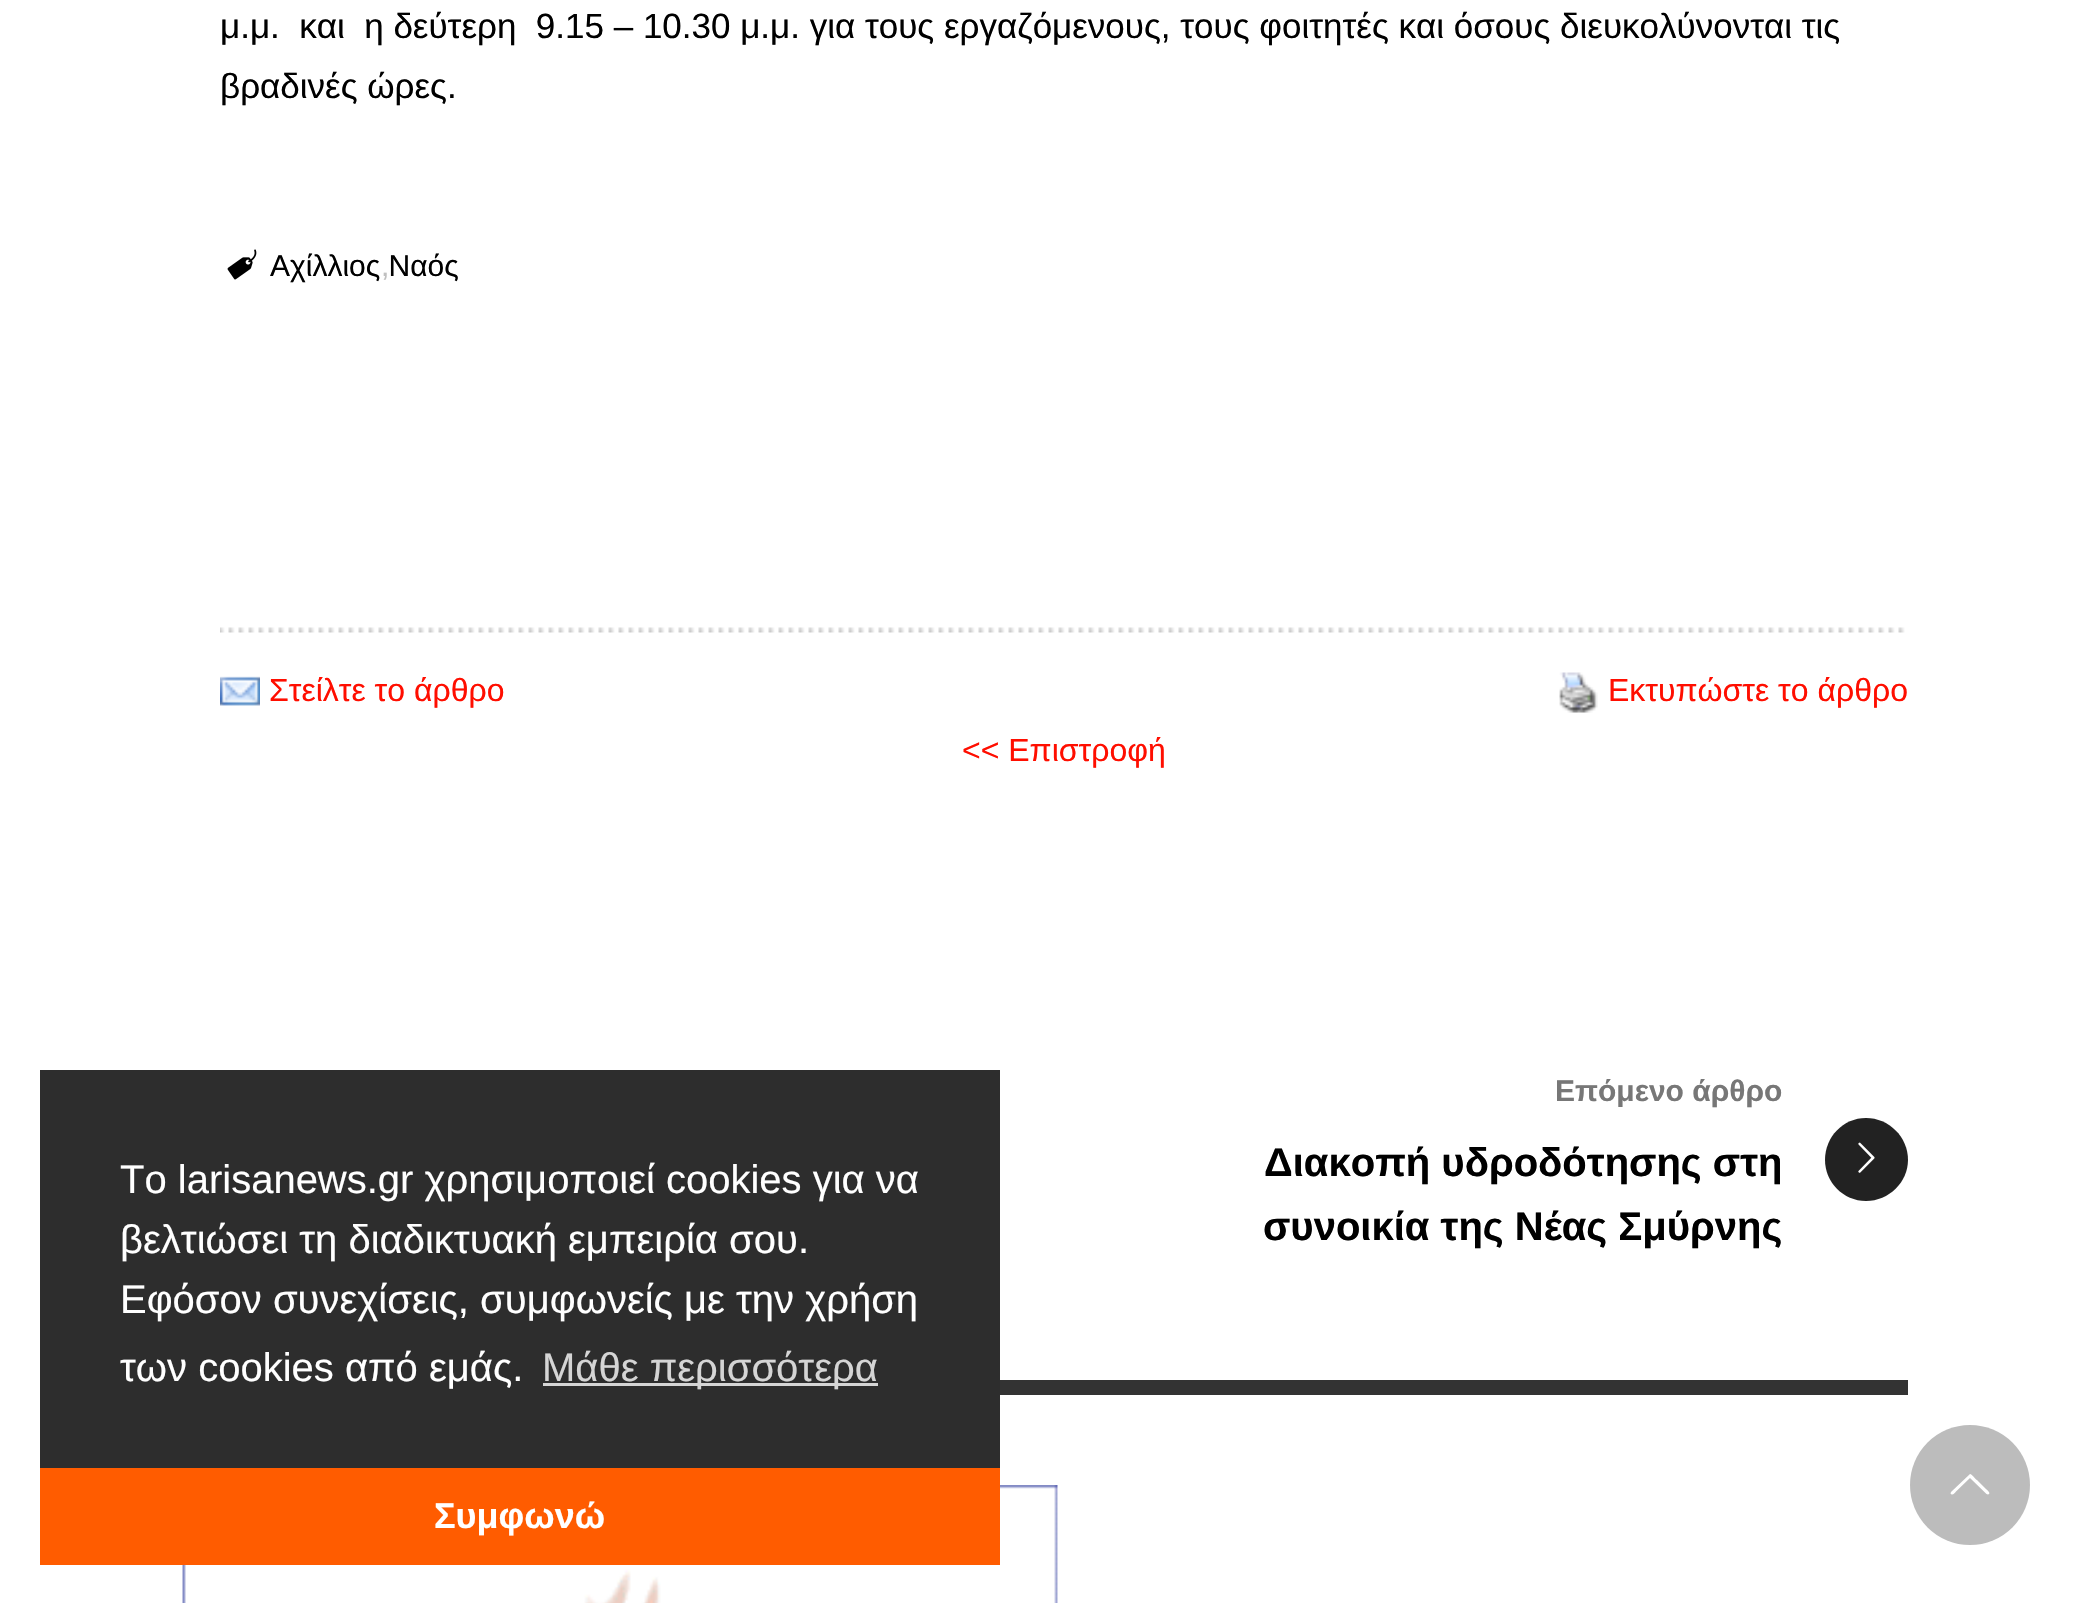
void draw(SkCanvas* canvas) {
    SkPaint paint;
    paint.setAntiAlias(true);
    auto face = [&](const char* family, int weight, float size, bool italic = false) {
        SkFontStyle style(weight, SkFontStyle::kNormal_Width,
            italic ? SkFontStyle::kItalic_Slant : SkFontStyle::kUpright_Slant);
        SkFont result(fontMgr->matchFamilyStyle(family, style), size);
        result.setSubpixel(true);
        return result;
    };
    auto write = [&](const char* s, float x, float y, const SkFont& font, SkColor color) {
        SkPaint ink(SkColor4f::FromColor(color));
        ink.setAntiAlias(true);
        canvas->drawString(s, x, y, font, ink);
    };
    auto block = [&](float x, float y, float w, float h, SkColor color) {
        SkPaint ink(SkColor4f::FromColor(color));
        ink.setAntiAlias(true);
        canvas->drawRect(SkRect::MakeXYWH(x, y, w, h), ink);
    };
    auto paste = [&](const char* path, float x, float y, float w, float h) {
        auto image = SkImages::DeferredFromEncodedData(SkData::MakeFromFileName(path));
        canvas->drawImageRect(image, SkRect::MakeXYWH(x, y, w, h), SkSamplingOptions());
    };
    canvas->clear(SK_ColorWHITE);
    auto kFont1 = face("Liberation Sans", 400, 35);
    write("μ.μ.  και  η δεύτερη  9.15 – 10.30 μ.μ. για τους εργαζόμενους, τους φοιτητές και όσους διευκολύνονται τις", 220, 38, kFont1, SK_ColorBLACK);
    write("βραδινές ώρες.", 220, 98, kFont1, SK_ColorBLACK);
    paste("pic1.png", 227, 249, 30, 31);
    auto kFont2 = face("Liberation Sans", 400, 30);
    write("Αχίλλιος Ναός", 270, 276, kFont2, SK_ColorBLACK);
    write(",", 381, 276, kFont2, SkColorSetRGB(192, 192, 192));
    paste("pic2.png", 220, 627, 1685, 6);
    paste("pic3.png", 220, 676, 40, 30);
    auto kFont3 = face("Liberation Sans", 400, 32);
    write("Στείλτε το άρθρο", 269, 701, kFont3, SkColorSetRGB(255, 14, 0));
    paste("pic4.png", 1559, 672, 39, 41);
    write("Εκτυπώστε το άρθρο", 1608, 701, kFont3, SkColorSetRGB(255, 14, 0));
    write("<< Επιστροφή", 962, 761, kFont3, SkColorSetRGB(255, 14, 0));
    auto kFont4 = face("Liberation Sans", 700, 30);
    write("Επόμενο άρθρο", 1555, 1101, kFont4, SkColorSetRGB(119, 119, 119));
    auto kFont5 = face("Liberation Sans", 700, 40);
    write("Διακοπή υδροδότησης στη", 1264, 1176, kFont5, SK_ColorBLACK);
    write("συνοικία της Νέας Σμύρνης", 1263, 1240, kFont5, SK_ColorBLACK);
    paint.setColor(SkColorSetRGB(34, 34, 34));
    canvas->drawPath(SkPathBuilder().moveTo(1866, 1118).cubicTo(1843, 1118, 1825, 1137, 1825, 1160).cubicTo(1825, 1182, 1843, 1201, 1866, 1201).cubicTo(1889, 1201, 1908, 1182, 1908, 1160).cubicTo(1908, 1137, 1889, 1118, 1866, 1118).close().detach(), paint);
    paste("pic5.png", 1858, 1142, 17, 31);
    block(1000, 1380, 908, 15, SkColorSetRGB(51, 51, 51));
    paste("pic6.png", 182, 1485, 876, 118);
    block(40, 1070, 960, 398, SkColorSetRGB(45, 45, 45));
    auto kFont6 = face("Liberation Sans", 400, 40);
    write("Το larisanews.gr χρησιμοποιεί cookies για να", 120, 1193, kFont6, SK_ColorWHITE);
    write("βελτιώσει τη διαδικτυακή εμπειρία σου.", 120, 1253, kFont6, SK_ColorWHITE);
    write("Εφόσον συνεχίσεις, συμφωνείς με την χρήση", 120, 1313, kFont6, SK_ColorWHITE);
    write("των cookies από εμάς.", 120, 1381, kFont6, SK_ColorWHITE);
    block(543, 1383, 335, 3, SkColorSetRGB(213, 213, 213));
    write("Μάθε περισσότερα", 542, 1381, kFont6, SkColorSetRGB(213, 213, 213));
    block(40, 1468, 960, 97, SkColorSetRGB(255, 92, 0));
    auto kFont7 = face("Liberation Sans", 700, 36);
    write("Συμφωνώ", 434, 1528, kFont7, SK_ColorWHITE);
    paint.setColor(SkColorSetRGB(188, 188, 188));
    canvas->drawCircle(1970, 1485, 60, paint);
    paint.setColor(SK_ColorWHITE);
    canvas->drawPath(SkPathBuilder().moveTo(1986.5f, 1494).lineTo(1970, 1478).lineTo(1956, 1491.5f).cubicTo(1955.5f, 1492.5f, 1952, 1496.5f, 1950.5f, 1493.5f).lineTo(1951, 1492).lineTo(1970, 1474).cubicTo(1971, 1473.5f, 1976, 1479.5f, 1977, 1480).lineTo(1986, 1489).cubicTo(1986, 1489, 1992, 1493.5f, 1988, 1494.5f).close().detach(), paint);
}
